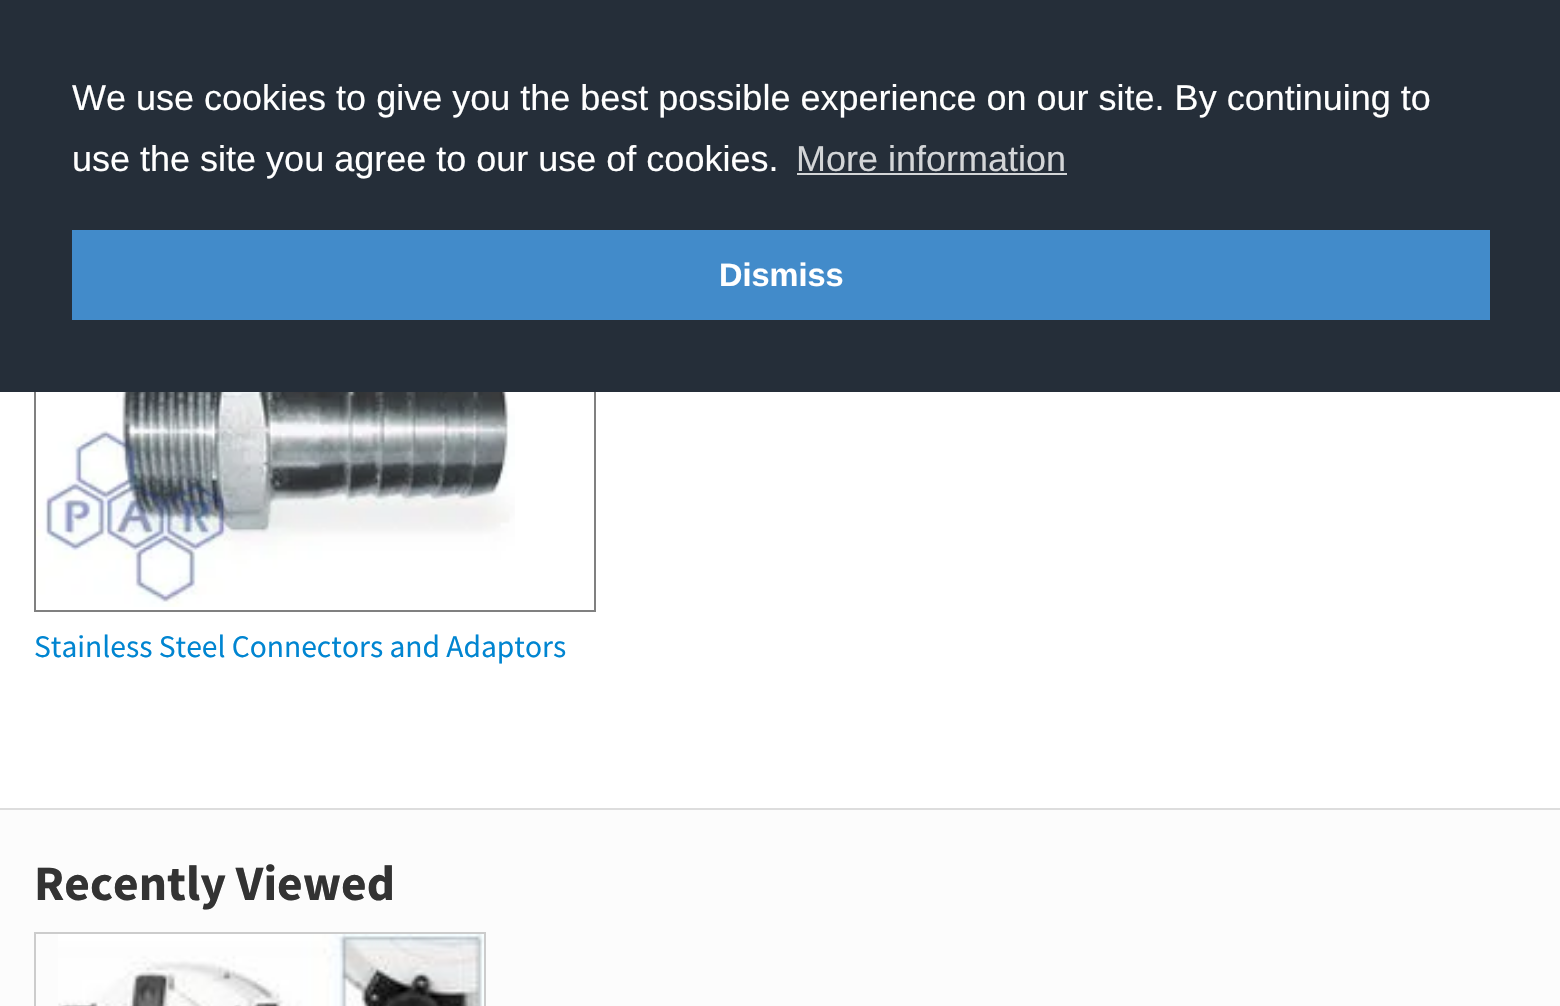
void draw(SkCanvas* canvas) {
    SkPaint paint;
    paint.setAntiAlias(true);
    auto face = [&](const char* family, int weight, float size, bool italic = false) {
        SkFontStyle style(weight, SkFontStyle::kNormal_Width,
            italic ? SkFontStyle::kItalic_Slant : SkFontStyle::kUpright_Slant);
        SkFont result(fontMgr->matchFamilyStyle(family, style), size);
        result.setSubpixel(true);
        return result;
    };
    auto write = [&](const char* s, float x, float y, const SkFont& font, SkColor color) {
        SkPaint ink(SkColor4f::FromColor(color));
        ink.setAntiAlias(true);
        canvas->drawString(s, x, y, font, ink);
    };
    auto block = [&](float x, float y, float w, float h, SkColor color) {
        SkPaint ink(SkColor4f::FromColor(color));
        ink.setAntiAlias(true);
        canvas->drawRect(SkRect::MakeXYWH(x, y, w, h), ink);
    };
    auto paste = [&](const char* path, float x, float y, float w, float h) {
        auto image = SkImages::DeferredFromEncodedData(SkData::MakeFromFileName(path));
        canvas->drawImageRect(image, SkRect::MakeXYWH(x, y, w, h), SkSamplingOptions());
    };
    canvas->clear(SK_ColorWHITE);
    paint.setStyle(SkPaint::kStroke_Style);
    paint.setStrokeWidth(2);
    paint.setColor(SkColorSetRGB(128, 128, 128));
    canvas->drawRect(SkRect::MakeXYWH(35, 235, 560, 376), paint);
    block(0, 0, 1560, 392, SkColorSetRGB(37, 46, 57));
    auto kFont1 = face("Liberation Sans", 400, 36);
    write("We use cookies to give you the best possible experience on our site. By continuing to", 72, 110, kFont1, SK_ColorWHITE);
    write("use the site you agree to our use of cookies.", 72, 171, kFont1, SK_ColorWHITE);
    write("More information", 796, 171, kFont1, SkColorSetRGB(211, 213, 215));
    block(797, 173, 270, 2, SkColorSetRGB(211, 213, 215));
    block(72, 230, 1418, 90, SkColorSetRGB(66, 139, 202));
    auto kFont2 = face("Liberation Sans", 700, 32.5f);
    write("Dismiss", 719, 286, kFont2, SK_ColorWHITE);
    paste("pic1.png", 36, 392, 479, 215);
    auto kFont3 = face("Source Sans Pro", 400, 31.5f);
    write("Stainless Steel Connectors and Adaptors", 34, 657, kFont3, SkColorSetRGB(0, 133, 209));
    block(0, 810, 1560, 196, SkColorSetRGB(252, 252, 252));
    block(0, 808, 1560, 2, SkColorSetRGB(221, 221, 221));
    auto kFont4 = face("Source Sans Pro", 700, 49.5f);
    write("Recently Viewed", 34, 900, kFont4, SkColorSetRGB(51, 51, 51));
    paint.setColor(SkColorSetRGB(204, 204, 204));
    canvas->drawRect(SkRect::MakeXYWH(35, 933, 450, 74), paint);
    paste("pic2.png", 58, 934, 426, 72);
}
